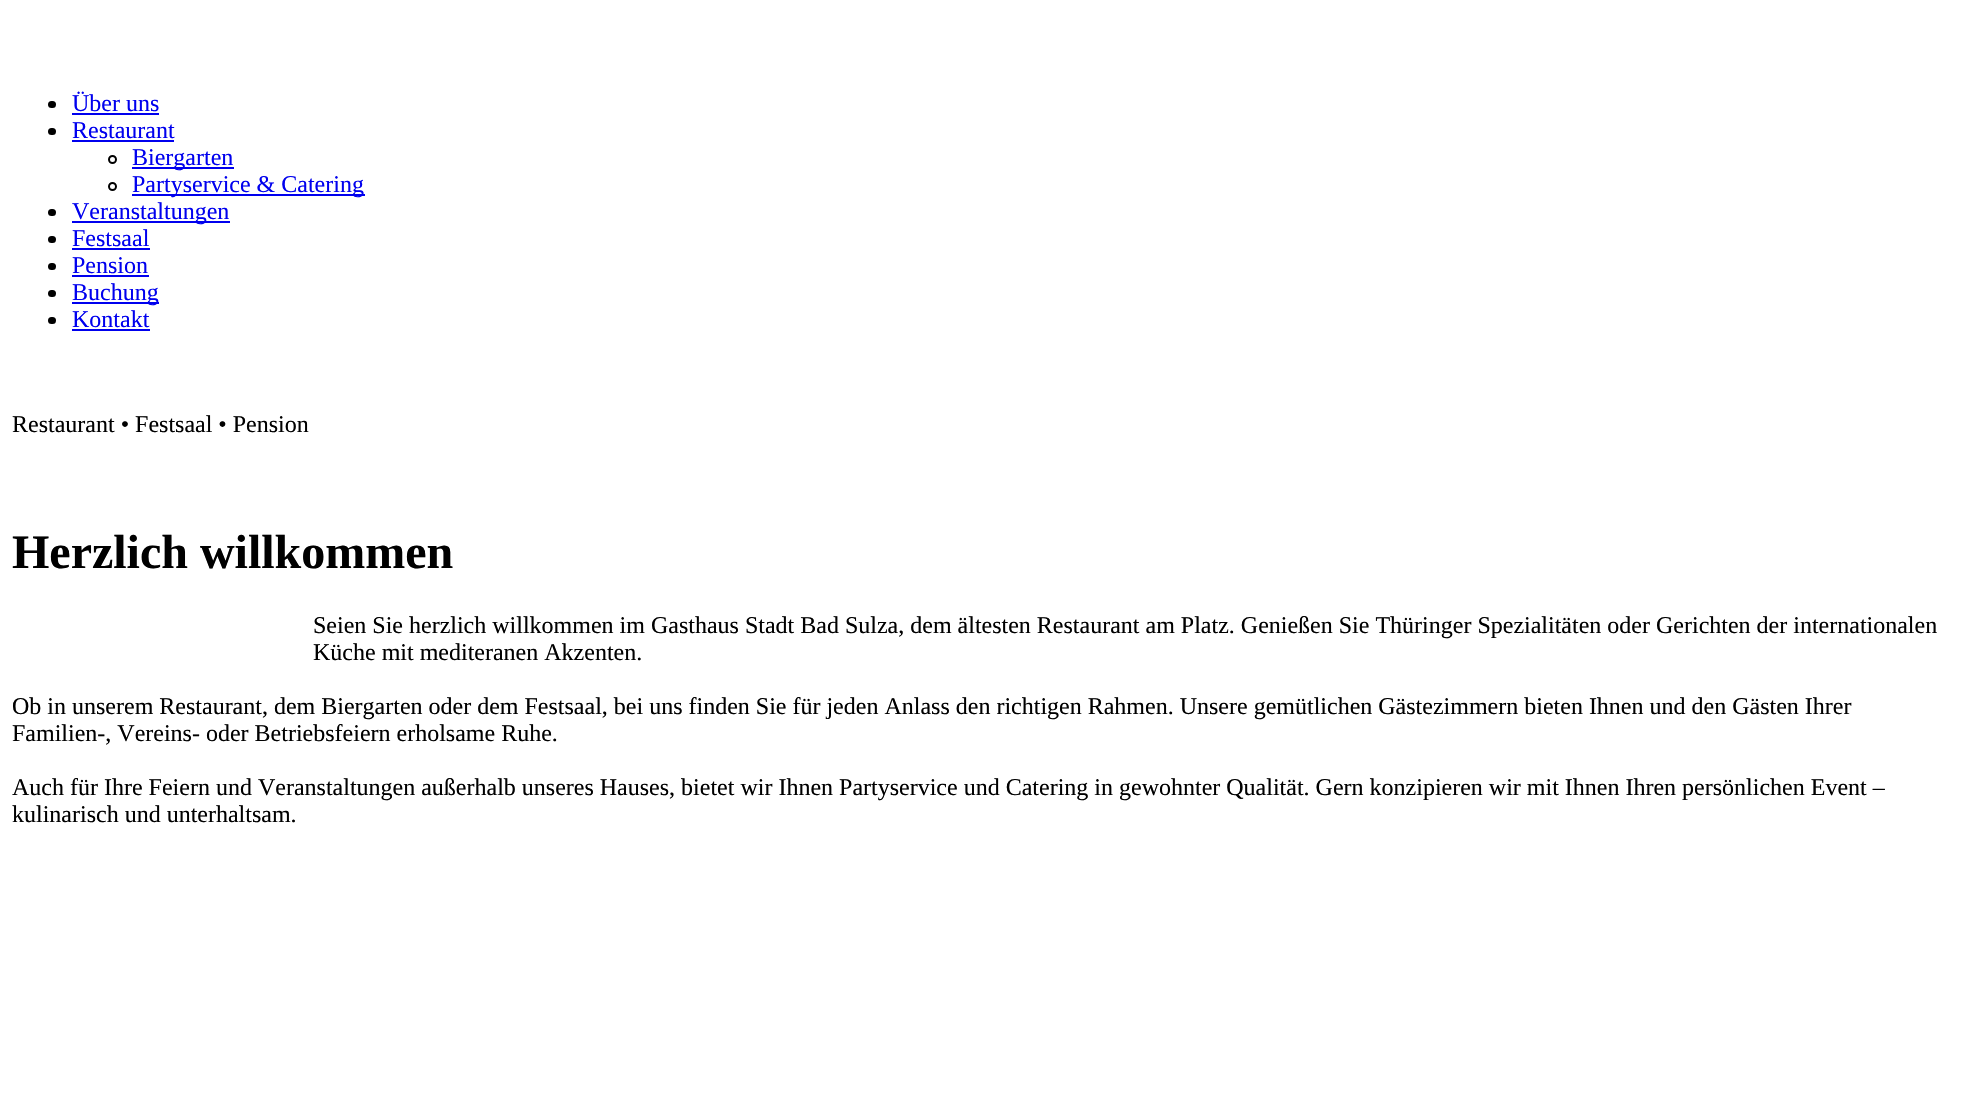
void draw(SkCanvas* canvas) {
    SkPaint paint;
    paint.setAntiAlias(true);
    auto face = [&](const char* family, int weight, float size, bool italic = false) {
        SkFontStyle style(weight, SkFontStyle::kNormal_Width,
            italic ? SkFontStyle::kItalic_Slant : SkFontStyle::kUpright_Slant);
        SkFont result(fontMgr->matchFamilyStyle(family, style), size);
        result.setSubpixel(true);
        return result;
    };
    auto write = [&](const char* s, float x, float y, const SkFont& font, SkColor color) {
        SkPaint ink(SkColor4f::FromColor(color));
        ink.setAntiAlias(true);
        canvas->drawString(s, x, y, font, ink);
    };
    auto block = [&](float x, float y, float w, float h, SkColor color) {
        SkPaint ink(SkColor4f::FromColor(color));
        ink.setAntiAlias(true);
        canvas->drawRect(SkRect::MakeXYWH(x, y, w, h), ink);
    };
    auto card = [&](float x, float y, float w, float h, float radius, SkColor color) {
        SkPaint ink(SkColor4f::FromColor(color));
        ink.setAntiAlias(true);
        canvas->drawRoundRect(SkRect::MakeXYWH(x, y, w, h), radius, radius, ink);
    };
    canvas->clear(SK_ColorWHITE);
    card(48, 101, 8, 7, 3.5f, SK_ColorBLACK);
    auto kFont1 = face("Liberation Serif", 400, 24);
    write("Über uns", 72, 111, kFont1, SkColorSetRGB(0, 0, 238));
    block(72, 113, 87, 2, SkColorSetRGB(0, 0, 238));
    card(48, 128, 8, 7, 3.5f, SK_ColorBLACK);
    write("Restaurant", 72, 138, kFont1, SkColorSetRGB(0, 0, 238));
    block(72, 140, 102, 2, SkColorSetRGB(0, 0, 238));
    paint.setStyle(SkPaint::kStroke_Style);
    paint.setStrokeWidth(2);
    paint.setColor(SK_ColorBLACK);
    canvas->drawCircle(112.5f, 159.5f, 3.5f, paint);
    block(132, 167, 102, 2, SkColorSetRGB(0, 0, 238));
    write("Biergarten", 132, 165, kFont1, SkColorSetRGB(0, 0, 238));
    canvas->drawCircle(112.5f, 186.5f, 3.5f, paint);
    block(132, 194, 233, 2, SkColorSetRGB(0, 0, 238));
    write("Partyservice & Catering", 132, 192, kFont1, SkColorSetRGB(0, 0, 238));
    card(48, 209, 8, 7, 3.5f, SK_ColorBLACK);
    block(72, 221, 158, 2, SkColorSetRGB(0, 0, 238));
    write("Veranstaltungen", 72, 219, kFont1, SkColorSetRGB(0, 0, 238));
    card(48, 236, 8, 7, 3.5f, SK_ColorBLACK);
    write("Festsaal", 72, 246, kFont1, SkColorSetRGB(0, 0, 238));
    block(72, 248, 78, 2, SkColorSetRGB(0, 0, 238));
    card(48, 263, 8, 7, 3.5f, SK_ColorBLACK);
    write("Pension", 72, 273, kFont1, SkColorSetRGB(0, 0, 238));
    block(72, 275, 77, 2, SkColorSetRGB(0, 0, 238));
    card(48, 290, 8, 7, 3.5f, SK_ColorBLACK);
    block(72, 302, 87, 2, SkColorSetRGB(0, 0, 238));
    write("Buchung", 72, 300, kFont1, SkColorSetRGB(0, 0, 238));
    card(48, 317, 8, 7, 3.5f, SK_ColorBLACK);
    write("Kontakt", 72, 327, kFont1, SkColorSetRGB(0, 0, 238));
    block(72, 329, 78, 2, SkColorSetRGB(0, 0, 238));
    write("Restaurant • Festsaal • Pension", 12, 432, kFont1, SK_ColorBLACK);
    auto kFont2 = face("Liberation Serif", 700, 48);
    write("Herzlich willkommen", 12, 568, kFont2, SK_ColorBLACK);
    write("Seien Sie herzlich willkommen im Gasthaus Stadt Bad Sulza, dem ältesten Restaurant am Platz. Genießen Sie Thüringer Spezialitäten oder Gerichten der internationalen", 313, 633, kFont1, SK_ColorBLACK);
    write("Küche mit mediteranen Akzenten.", 313, 660, kFont1, SK_ColorBLACK);
    write("Ob in unserem Restaurant, dem Biergarten oder dem Festsaal, bei uns finden Sie für jeden Anlass den richtigen Rahmen. Unsere gemütlichen Gästezimmern bieten Ihnen und den Gästen Ihrer", 12, 714, kFont1, SK_ColorBLACK);
    write("Familien-, Vereins- oder Betriebsfeiern erholsame Ruhe.", 12, 741, kFont1, SK_ColorBLACK);
    write("Auch für Ihre Feiern und Veranstaltungen außerhalb unseres Hauses, bietet wir Ihnen Partyservice und Catering in gewohnter Qualität. Gern konzipieren wir mit Ihnen Ihren persönlichen Event –", 12, 795, kFont1, SK_ColorBLACK);
    write("kulinarisch und unterhaltsam.", 12, 822, kFont1, SK_ColorBLACK);
}
